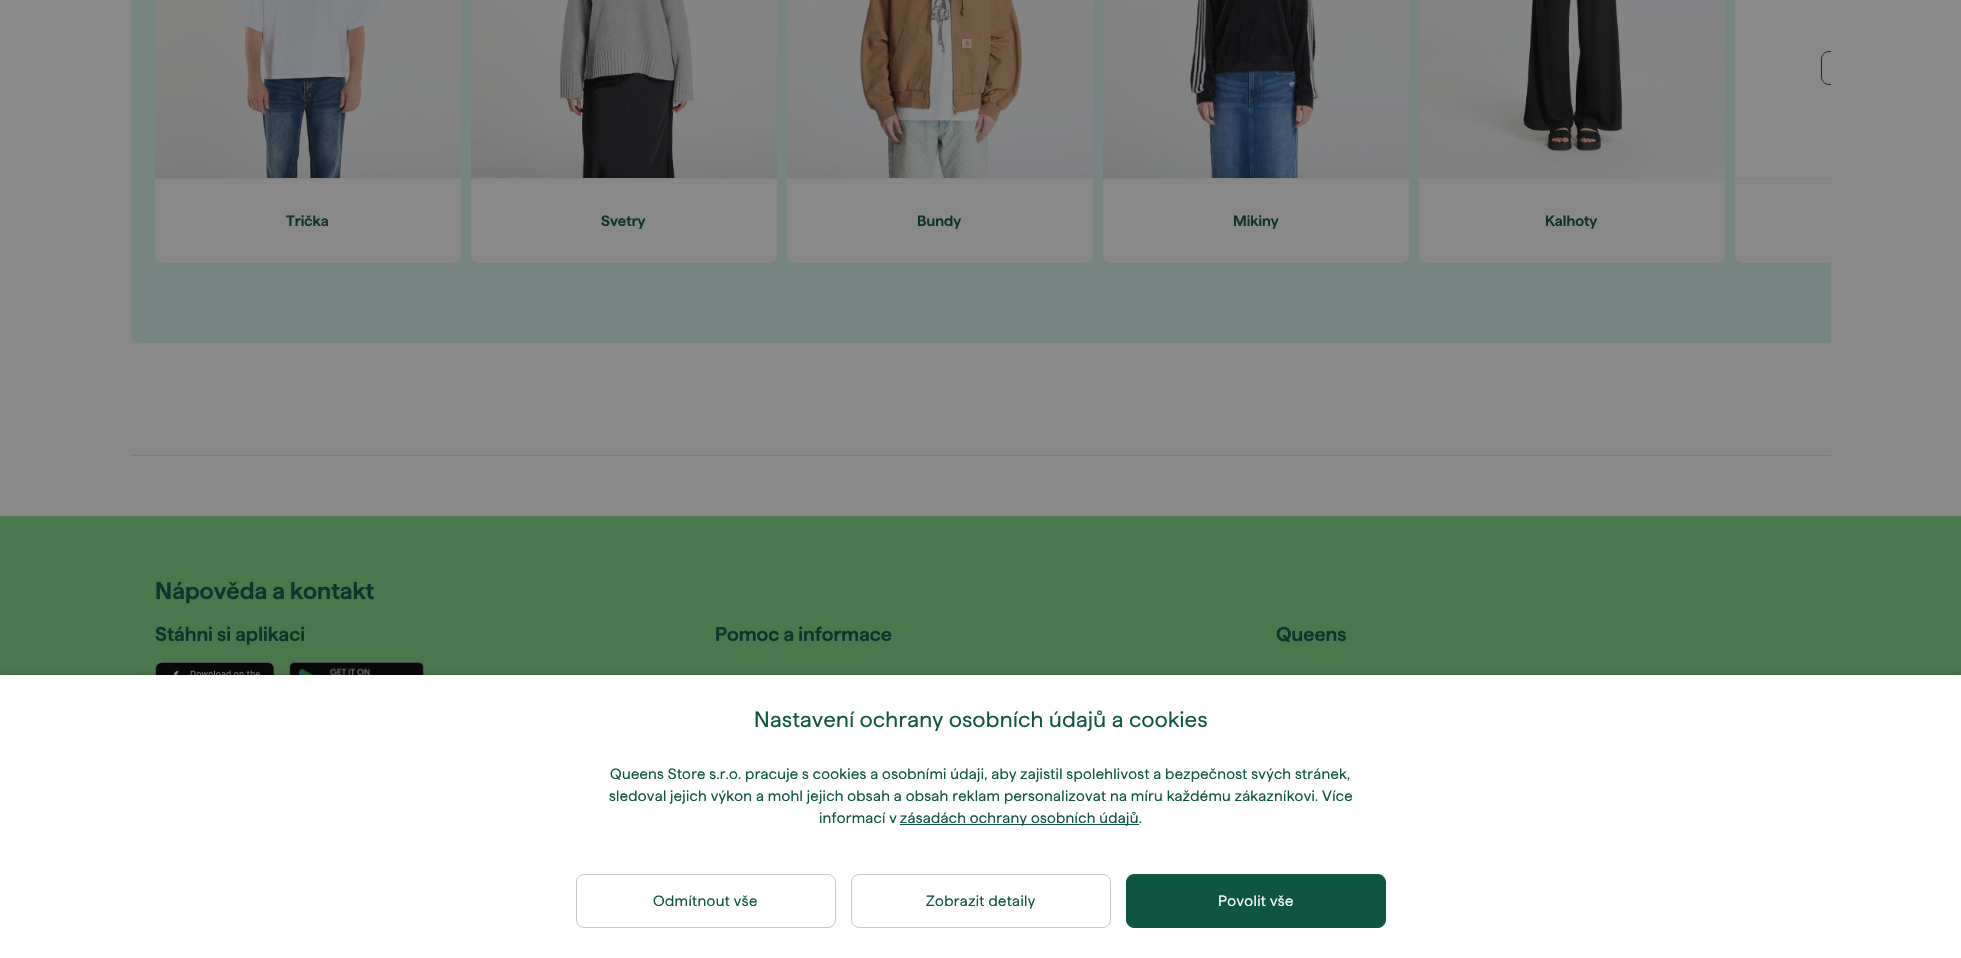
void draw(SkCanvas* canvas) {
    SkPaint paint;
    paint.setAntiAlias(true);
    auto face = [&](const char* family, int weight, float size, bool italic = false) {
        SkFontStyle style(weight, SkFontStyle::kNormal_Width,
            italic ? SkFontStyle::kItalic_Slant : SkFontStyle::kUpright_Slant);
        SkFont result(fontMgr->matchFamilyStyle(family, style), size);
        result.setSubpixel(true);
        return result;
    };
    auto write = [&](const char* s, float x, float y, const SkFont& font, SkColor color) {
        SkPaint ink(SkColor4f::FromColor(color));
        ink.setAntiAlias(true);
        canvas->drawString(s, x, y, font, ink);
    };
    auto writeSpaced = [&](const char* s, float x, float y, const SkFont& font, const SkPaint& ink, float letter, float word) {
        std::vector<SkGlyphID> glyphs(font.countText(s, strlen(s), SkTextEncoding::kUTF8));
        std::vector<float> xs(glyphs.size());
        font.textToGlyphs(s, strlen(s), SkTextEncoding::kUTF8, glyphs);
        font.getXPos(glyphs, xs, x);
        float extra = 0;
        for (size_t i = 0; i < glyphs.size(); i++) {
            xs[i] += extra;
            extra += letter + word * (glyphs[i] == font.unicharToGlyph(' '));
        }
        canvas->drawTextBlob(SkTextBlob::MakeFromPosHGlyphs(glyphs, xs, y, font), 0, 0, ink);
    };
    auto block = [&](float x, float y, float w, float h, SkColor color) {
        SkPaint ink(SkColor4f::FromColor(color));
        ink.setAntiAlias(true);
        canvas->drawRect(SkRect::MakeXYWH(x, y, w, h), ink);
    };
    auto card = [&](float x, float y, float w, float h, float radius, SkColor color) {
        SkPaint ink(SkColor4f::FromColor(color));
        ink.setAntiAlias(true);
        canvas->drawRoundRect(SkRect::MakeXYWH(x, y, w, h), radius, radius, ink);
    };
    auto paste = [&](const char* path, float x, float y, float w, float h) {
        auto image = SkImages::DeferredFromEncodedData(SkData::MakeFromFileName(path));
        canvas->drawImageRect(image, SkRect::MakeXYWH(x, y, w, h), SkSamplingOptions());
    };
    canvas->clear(SkColorSetRGB(136, 136, 136));
    paint.setColor(SkColorSetRGB(118, 133, 129));
    canvas->drawPath(SkPathBuilder().moveTo(139, -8).lineTo(1831, -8).lineTo(1831, 343).lineTo(139, 343).cubicTo(134.5f, 343, 131, 339.5f, 131, 335).lineTo(131, 0).cubicTo(131, -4.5f, 134.5f, -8, 139, -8).close().detach(), paint);
    paint.setColor(SkColorSetRGB(136, 136, 136));
    canvas->drawPath(SkPathBuilder().moveTo(1743, -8).lineTo(1831, -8).lineTo(1831, 263).lineTo(1743, 263).cubicTo(1738.5f, 263, 1735, 259.5f, 1735, 255).lineTo(1735, 0).cubicTo(1735, -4.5f, 1738.5f, -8, 1743, -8).close().detach(), paint);
    canvas->save();
    canvas->clipRect(SkRect::MakeXYWH(155, 0, 1676, 263));
    paint.setStyle(SkPaint::kStroke_Style);
    paint.setStrokeWidth(1);
    paint.setColor(SkColorSetRGB(16, 51, 42));
    canvas->drawRoundRect(SkRect::MakeXYWH(1821.5f, 51.5f, 33, 33), 7.5f, 7.5f, paint);
    canvas->restore();
    card(155, -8, 306, 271, 8, SkColorSetRGB(136, 136, 136));
    paste("pic1.png", 155, 0, 306, 178);
    block(155, 178, 306, 1, SkColorSetRGB(130, 130, 130));
    auto kFont1 = face("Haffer", 600, 15);
    write("Trička", 286, 226, kFont1, SkColorSetRGB(16, 51, 42));
    card(471, -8, 306, 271, 8, SkColorSetRGB(136, 136, 136));
    paste("pic2.png", 471, 0, 306, 178);
    block(471, 178, 306, 1, SkColorSetRGB(130, 130, 130));
    write("Svetry", 601, 226, kFont1, SkColorSetRGB(16, 51, 42));
    card(787, -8, 306, 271, 8, SkColorSetRGB(136, 136, 136));
    paste("pic3.png", 787, 0, 306, 178);
    block(787, 178, 306, 1, SkColorSetRGB(130, 130, 130));
    write("Bundy", 917, 226, kFont1, SkColorSetRGB(16, 51, 42));
    card(1103, -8, 306, 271, 8, SkColorSetRGB(136, 136, 136));
    paste("pic4.png", 1103, 0, 306, 178);
    block(1103, 178, 306, 1, SkColorSetRGB(130, 130, 130));
    write("Mikiny", 1233, 226, kFont1, SkColorSetRGB(16, 51, 42));
    card(1419, -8, 306, 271, 8, SkColorSetRGB(136, 136, 136));
    paste("pic5.png", 1419, 0, 306, 178);
    block(1419, 178, 306, 1, SkColorSetRGB(130, 130, 130));
    write("Kalhoty", 1545, 226, kFont1, SkColorSetRGB(16, 51, 42));
    block(1735, 178, 96, 1, SkColorSetRGB(130, 130, 130));
    block(131, 455, 1700, 1, SkColorSetRGB(124, 124, 124));
    block(0, 516, 1961, 159, SkColorSetRGB(75, 119, 76));
    auto kFont2 = face("Haffer", 600, 24);
    write("Nápověda a kontakt", 155, 599, kFont2, SkColorSetRGB(16, 51, 42));
    auto kFont3 = face("Haffer", 600, 20);
    write("Stáhni si aplikaci", 155, 641, kFont3, SkColorSetRGB(16, 51, 42));
    paste("pic6.png", 155, 662, 119, 13);
    paste("pic7.png", 289, 662, 135, 13);
    write("Pomoc a informace", 715, 641, kFont3, SkColorSetRGB(16, 51, 42));
    write("Queens", 1276, 641, kFont3, SkColorSetRGB(16, 51, 42));
    paint.setStyle(SkPaint::kFill_Style);
    paint.setColor(SkColorSetARGB(89, 0, 0, 0));
    paint.setMaskFilter(SkMaskFilter::MakeBlur(kNormal_SkBlurStyle, 4));
    canvas->drawRect(SkRect::MakeXYWH(1, 677, 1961, 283), paint);
    paint.setMaskFilter(nullptr);
    block(0, 675, 1961, 283, SK_ColorWHITE);
    auto kFont4 = face("Haffer", 400, 22);
    paint.setColor(SkColorSetRGB(14, 85, 66));
    writeSpaced("Nastavení ochrany osobních údajů a cookies", 754, 727, kFont4, paint, 0.4f, 0);
    auto kFont5 = face("Haffer", 400, 15);
    writeSpaced("Queens Store s.r.o. pracuje s cookies a osobními údaji, aby zajistil spolehlivost a bezpečnost svých stránek,", 610, 779, kFont5, paint, 0.3f, 0);
    writeSpaced("sledoval jejich výkon a mohl jejich obsah a obsah reklam personalizovat na míru každému zákazníkovi. Více", 609, 801, kFont5, paint, 0.3f, 0);
    writeSpaced("informací v", 819, 823, kFont5, paint, 0.3f, 0);
    block(900, 824, 239, 1, SkColorSetRGB(14, 85, 66));
    writeSpaced("zásadách ochrany osobních údajů.", 900, 823, kFont5, paint, 0.3f, 0);
    paint.setStyle(SkPaint::kStroke_Style);
    paint.setColor(SkColorSetRGB(200, 200, 200));
    canvas->drawRoundRect(SkRect::MakeXYWH(576.5f, 874.5f, 259, 53), 7.5f, 7.5f, paint);
    paint.setStyle(SkPaint::kFill_Style);
    paint.setColor(SkColorSetRGB(14, 85, 66));
    writeSpaced("Odmítnout vše", 653, 906, kFont5, paint, 0.4f, 0);
    canvas->drawRoundRect(SkRect::MakeXYWH(1126.5f, 874.5f, 259, 53), 7.5f, 7.5f, paint);
    paint.setStyle(SkPaint::kStroke_Style);
    canvas->drawRoundRect(SkRect::MakeXYWH(1126.5f, 874.5f, 259, 53), 7.5f, 7.5f, paint);
    paint.setStyle(SkPaint::kFill_Style);
    paint.setColor(SK_ColorWHITE);
    writeSpaced("Povolit vše", 1218, 906, kFont5, paint, 0.4f, 0);
    paint.setStyle(SkPaint::kStroke_Style);
    paint.setColor(SkColorSetRGB(200, 200, 200));
    canvas->drawRoundRect(SkRect::MakeXYWH(851.5f, 874.5f, 259, 53), 7.5f, 7.5f, paint);
    paint.setStyle(SkPaint::kFill_Style);
    paint.setColor(SkColorSetRGB(14, 85, 66));
    writeSpaced("Zobrazit detaily", 926, 906, kFont5, paint, 0.4f, 0);
}
